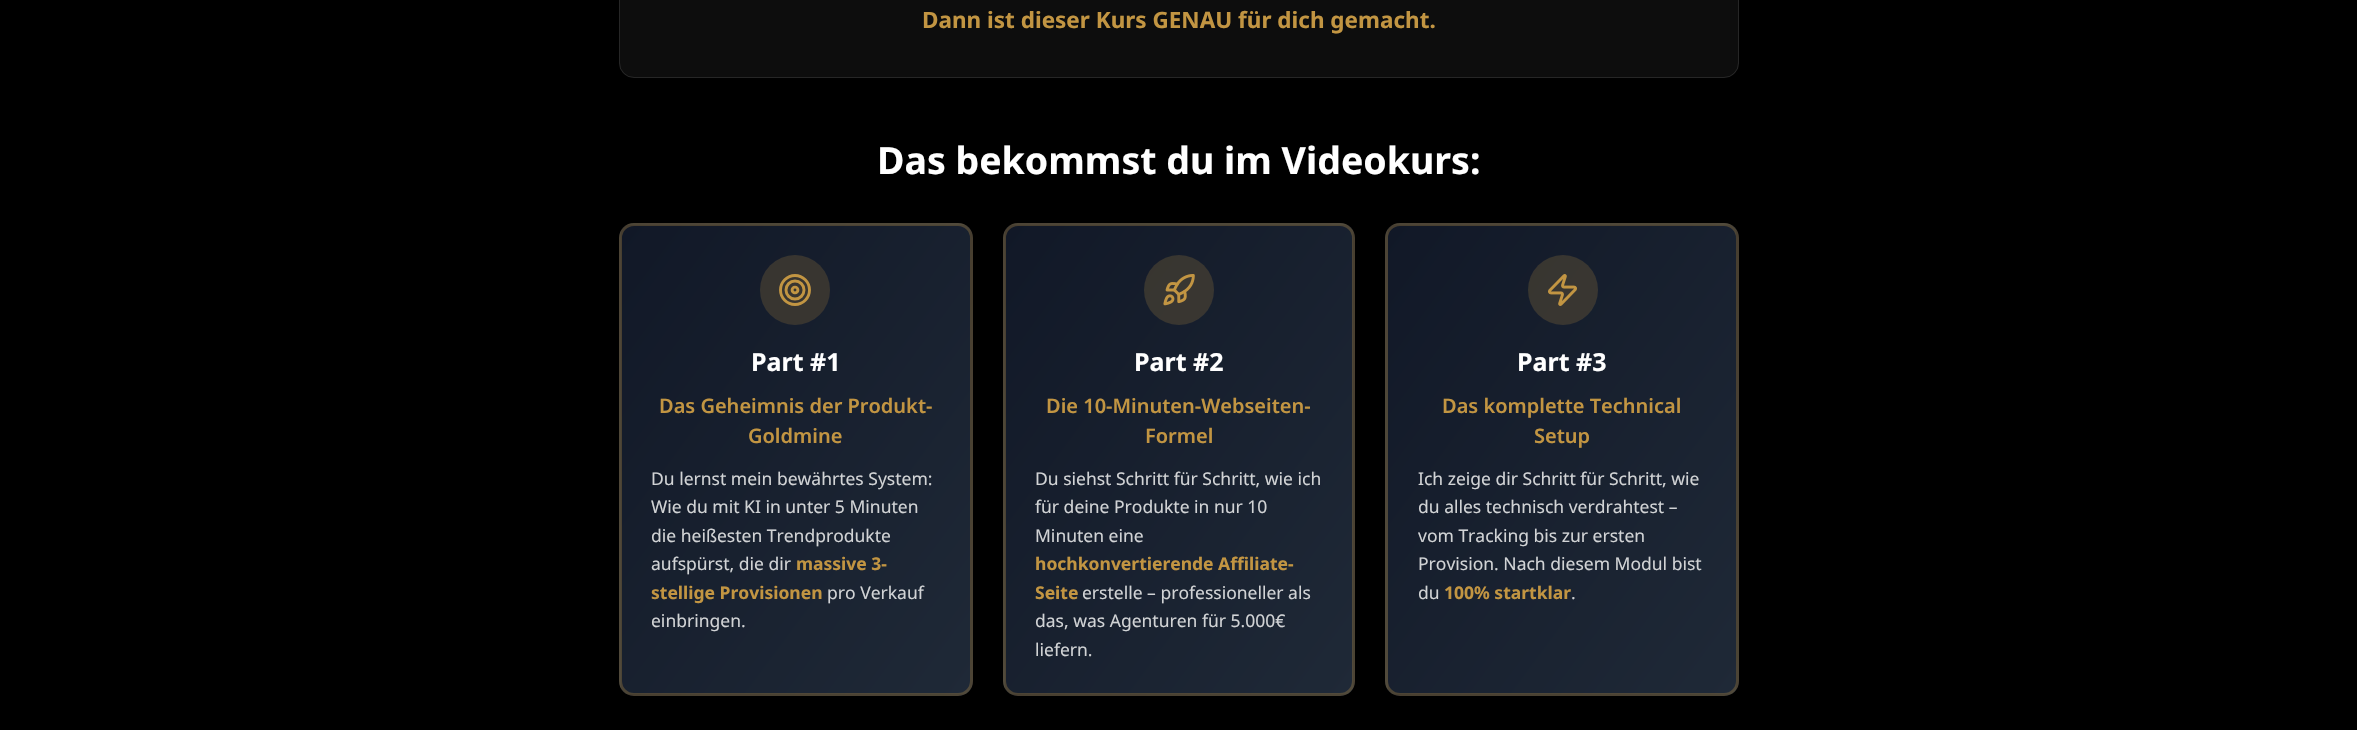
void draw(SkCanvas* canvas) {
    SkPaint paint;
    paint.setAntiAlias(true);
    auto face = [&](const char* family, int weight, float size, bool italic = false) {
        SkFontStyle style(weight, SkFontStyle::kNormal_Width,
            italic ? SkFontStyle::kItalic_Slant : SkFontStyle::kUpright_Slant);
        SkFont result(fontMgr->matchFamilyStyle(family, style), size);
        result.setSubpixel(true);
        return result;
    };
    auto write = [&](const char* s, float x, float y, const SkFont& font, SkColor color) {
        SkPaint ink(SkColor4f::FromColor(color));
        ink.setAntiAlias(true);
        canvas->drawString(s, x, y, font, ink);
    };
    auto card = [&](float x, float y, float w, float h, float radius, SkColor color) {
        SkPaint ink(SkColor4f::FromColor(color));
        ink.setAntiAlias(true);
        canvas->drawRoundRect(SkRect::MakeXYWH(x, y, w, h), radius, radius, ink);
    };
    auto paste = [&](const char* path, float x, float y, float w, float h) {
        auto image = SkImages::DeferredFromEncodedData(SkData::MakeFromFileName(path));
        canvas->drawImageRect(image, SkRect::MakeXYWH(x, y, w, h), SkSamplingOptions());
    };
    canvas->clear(SK_ColorBLACK);
    card(619, -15, 1120, 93, 15, SkColorSetRGB(13, 13, 13));
    paint.setStyle(SkPaint::kStroke_Style);
    paint.setStrokeWidth(1);
    paint.setColor(SkColorSetARGB(26, 255, 255, 255));
    canvas->drawRoundRect(SkRect::MakeXYWH(619.5f, -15.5f, 1119, 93), 14.5f, 14.5f, paint);
    auto kFont1 = face("Noto Sans", 700, 22.5f);
    write("Dann ist dieser Kurs GENAU für dich gemacht.", 922, 28, kFont1, SkColorSetRGB(194, 149, 66));
    auto kFont2 = face("Noto Sans", 700, 37.5f);
    write("Das bekommst du im Videokurs:", 877, 174, kFont2, SK_ColorWHITE);
    canvas->save();
    canvas->clipPath(SkPathBuilder().moveTo(634, 223).lineTo(958, 223).cubicTo(966.5f, 223, 973, 229.5f, 973, 238).lineTo(973, 681).cubicTo(973, 689.5f, 966.5f, 696, 958, 696).lineTo(634, 696).cubicTo(625.5f, 696, 619, 689.5f, 619, 681).lineTo(619, 238).cubicTo(619, 229.5f, 625.5f, 223, 634, 223).close().detach(), true);
    paint.setStyle(SkPaint::kFill_Style);
    {
        const SkColor colors[] = {SkColorSetRGB(17, 24, 39), SkColorSetRGB(31, 41, 55)};
        const float stops[] = {0, 1};
        const SkPoint ends[] = {{571, -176}, {1020, 158}};
        paint.setShader(SkGradientShader::MakeLinear(ends, colors, stops, 2, SkTileMode::kClamp));
        paint.setAlpha(255);
    }
    canvas->drawRect(SkRect::MakeXYWH(621, 223, 349, 2), paint);
    {
        const SkColor colors[] = {SkColorSetRGB(17, 24, 39), SkColorSetRGB(31, 41, 55)};
        const float stops[] = {0, 1};
        const SkPoint ends[] = {{222, 292}, {671, 626}};
        paint.setShader(SkGradientShader::MakeLinear(ends, colors, stops, 2, SkTileMode::kClamp));
        paint.setAlpha(255);
    }
    canvas->drawRect(SkRect::MakeXYWH(619, 225, 2, 469), paint);
    {
        const SkColor colors[] = {SkColorSetRGB(17, 24, 39), SkColorSetRGB(31, 41, 55)};
        const float stops[] = {0, 1};
        const SkPoint ends[] = {{571, 292}, {1020, 626}};
        paint.setShader(SkGradientShader::MakeLinear(ends, colors, stops, 2, SkTileMode::kClamp));
        paint.setAlpha(255);
    }
    canvas->drawRect(SkRect::MakeXYWH(621, 225, 349, 469), paint);
    {
        const SkColor colors[] = {SkColorSetRGB(17, 24, 39), SkColorSetRGB(31, 41, 55)};
        const float stops[] = {0, 1};
        const SkPoint ends[] = {{920, 292}, {1369, 626}};
        paint.setShader(SkGradientShader::MakeLinear(ends, colors, stops, 2, SkTileMode::kClamp));
        paint.setAlpha(255);
    }
    canvas->drawRect(SkRect::MakeXYWH(970, 225, 3, 469), paint);
    {
        const SkColor colors[] = {SkColorSetRGB(17, 24, 39), SkColorSetRGB(31, 41, 55)};
        const float stops[] = {0, 1};
        const SkPoint ends[] = {{571, 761}, {1020, 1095}};
        paint.setShader(SkGradientShader::MakeLinear(ends, colors, stops, 2, SkTileMode::kClamp));
        paint.setAlpha(255);
    }
    canvas->drawRect(SkRect::MakeXYWH(621, 694, 349, 2), paint);
    canvas->restore();
    paint.setStyle(SkPaint::kStroke_Style);
    paint.setStrokeWidth(3);
    paint.setShader(nullptr);
    paint.setColor(SkColorSetARGB(77, 194, 149, 66));
    canvas->drawRoundRect(SkRect::MakeXYWH(620.5f, 224.5f, 351, 470), 13.5f, 13.5f, paint);
    paint.setStyle(SkPaint::kFill_Style);
    paint.setColor(SkColorSetRGB(56, 53, 48));
    canvas->drawCircle(795, 290, 35, paint);
    paint.setStyle(SkPaint::kStroke_Style);
    paint.setStrokeWidth(2.9f);
    paint.setColor(SkColorSetRGB(194, 149, 66));
    canvas->drawCircle(795, 290, 14.5f, paint);
    canvas->drawCircle(795, 290, 9, paint);
    canvas->drawCircle(795, 290, 2.9f, paint);
    auto kFont3 = face("Noto Sans", 700, 25);
    write("Part #1", 751, 371, kFont3, SK_ColorWHITE);
    auto kFont4 = face("Noto Sans", 600, 20);
    write("Das Geheimnis der Produkt-", 659, 413, kFont4, SkColorSetRGB(194, 149, 66));
    write("Goldmine", 748, 443, kFont4, SkColorSetRGB(194, 149, 66));
    auto kFont5 = face("Noto Sans", 400, 17.5f);
    write("Du lernst mein bewährtes System:", 651, 485, kFont5, SkColorSetRGB(209, 211, 213));
    write("Wie du mit KI in unter 5 Minuten", 651, 513, kFont5, SkColorSetRGB(209, 211, 213));
    write("die heißesten Trendprodukte", 651, 542, kFont5, SkColorSetRGB(209, 211, 213));
    write("aufspürst, die dir", 651, 570, kFont5, SkColorSetRGB(209, 211, 213));
    auto kFont6 = face("Noto Sans", 700, 17.5f);
    write("massive 3-", 796, 570, kFont6, SkColorSetRGB(194, 149, 66));
    write("stellige Provisionen", 651, 599, kFont6, SkColorSetRGB(194, 149, 66));
    write("pro Verkauf", 827, 599, kFont5, SkColorSetRGB(209, 211, 213));
    write("einbringen.", 651, 627, kFont5, SkColorSetRGB(209, 211, 213));
    canvas->save();
    canvas->clipPath(SkPathBuilder().moveTo(1018, 223).lineTo(1340, 223).cubicTo(1348.5f, 223, 1355, 229.5f, 1355, 238).lineTo(1355, 681).cubicTo(1355, 689.5f, 1348.5f, 696, 1340, 696).lineTo(1018, 696).cubicTo(1009.5f, 696, 1003, 689.5f, 1003, 681).lineTo(1003, 238).cubicTo(1003, 229.5f, 1009.5f, 223, 1018, 223).close().detach(), true);
    paint.setStyle(SkPaint::kFill_Style);
    {
        const SkColor colors[] = {SkColorSetRGB(17, 24, 39), SkColorSetRGB(31, 41, 55)};
        const float stops[] = {0, 1};
        const SkPoint ends[] = {{954, -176}, {1403, 157}};
        paint.setShader(SkGradientShader::MakeLinear(ends, colors, stops, 2, SkTileMode::kClamp));
        paint.setAlpha(255);
    }
    canvas->drawRect(SkRect::MakeXYWH(1005, 223, 348, 2), paint);
    {
        const SkColor colors[] = {SkColorSetRGB(17, 24, 39), SkColorSetRGB(31, 41, 55)};
        const float stops[] = {0, 1};
        const SkPoint ends[] = {{607, 293}, {1056, 626}};
        paint.setShader(SkGradientShader::MakeLinear(ends, colors, stops, 2, SkTileMode::kClamp));
        paint.setAlpha(255);
    }
    canvas->drawRect(SkRect::MakeXYWH(1003, 225, 2, 469), paint);
    {
        const SkColor colors[] = {SkColorSetRGB(17, 24, 39), SkColorSetRGB(31, 41, 55)};
        const float stops[] = {0, 1};
        const SkPoint ends[] = {{954, 293}, {1403, 626}};
        paint.setShader(SkGradientShader::MakeLinear(ends, colors, stops, 2, SkTileMode::kClamp));
        paint.setAlpha(255);
    }
    canvas->drawRect(SkRect::MakeXYWH(1005, 225, 348, 469), paint);
    {
        const SkColor colors[] = {SkColorSetRGB(17, 24, 39), SkColorSetRGB(31, 41, 55)};
        const float stops[] = {0, 1};
        const SkPoint ends[] = {{1302, 293}, {1751, 626}};
        paint.setShader(SkGradientShader::MakeLinear(ends, colors, stops, 2, SkTileMode::kClamp));
        paint.setAlpha(255);
    }
    canvas->drawRect(SkRect::MakeXYWH(1353, 225, 2, 469), paint);
    {
        const SkColor colors[] = {SkColorSetRGB(17, 24, 39), SkColorSetRGB(31, 41, 55)};
        const float stops[] = {0, 1};
        const SkPoint ends[] = {{954, 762}, {1403, 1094}};
        paint.setShader(SkGradientShader::MakeLinear(ends, colors, stops, 2, SkTileMode::kClamp));
        paint.setAlpha(255);
    }
    canvas->drawRect(SkRect::MakeXYWH(1005, 694, 348, 2), paint);
    canvas->restore();
    paint.setStyle(SkPaint::kStroke_Style);
    paint.setStrokeWidth(3);
    paint.setShader(nullptr);
    paint.setColor(SkColorSetARGB(77, 194, 149, 66));
    canvas->drawRoundRect(SkRect::MakeXYWH(1004.5f, 224.5f, 349, 470), 13.5f, 13.5f, paint);
    paint.setStyle(SkPaint::kFill_Style);
    paint.setColor(SkColorSetARGB(51, 194, 149, 66));
    canvas->drawCircle(1179, 290, 35, paint);
    paste("pic1.png", 1163, 274, 32, 32);
    write("Part #2", 1134, 371, kFont3, SK_ColorWHITE);
    write("Die 10-Minuten-Webseiten-", 1046, 413, kFont4, SkColorSetRGB(194, 149, 66));
    write("Formel", 1145, 443, kFont4, SkColorSetRGB(194, 149, 66));
    write("Du siehst Schritt für Schritt, wie ich", 1035, 485, kFont5, SkColorSetRGB(209, 211, 213));
    write("für deine Produkte in nur 10", 1035, 513, kFont5, SkColorSetRGB(209, 211, 213));
    write("Minuten eine", 1035, 542, kFont5, SkColorSetRGB(209, 211, 213));
    write("hochkonvertierende Affiliate-", 1035, 570, kFont6, SkColorSetRGB(194, 149, 66));
    write("Seite", 1035, 599, kFont6, SkColorSetRGB(194, 149, 66));
    write("erstelle – professioneller als", 1082, 599, kFont5, SkColorSetRGB(209, 211, 213));
    write("das, was Agenturen für 5.000€", 1035, 627, kFont5, SkColorSetRGB(209, 211, 213));
    write("liefern.", 1035, 656, kFont5, SkColorSetRGB(209, 211, 213));
    canvas->save();
    canvas->clipPath(SkPathBuilder().moveTo(1400, 223).lineTo(1724, 223).cubicTo(1732.5f, 223, 1739, 229.5f, 1739, 238).lineTo(1739, 681).cubicTo(1739, 689.5f, 1732.5f, 696, 1724, 696).lineTo(1400, 696).cubicTo(1391.5f, 696, 1385, 689.5f, 1385, 681).lineTo(1385, 238).cubicTo(1385, 229.5f, 1391.5f, 223, 1400, 223).close().detach(), true);
    {
        const SkColor colors[] = {SkColorSetRGB(17, 24, 39), SkColorSetRGB(31, 41, 55)};
        const float stops[] = {0, 1};
        const SkPoint ends[] = {{1337, -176}, {1786, 158}};
        paint.setShader(SkGradientShader::MakeLinear(ends, colors, stops, 2, SkTileMode::kClamp));
        paint.setAlpha(255);
    }
    canvas->drawRect(SkRect::MakeXYWH(1388, 223, 348, 2), paint);
    {
        const SkColor colors[] = {SkColorSetRGB(17, 24, 39), SkColorSetRGB(31, 41, 55)};
        const float stops[] = {0, 1};
        const SkPoint ends[] = {{989, 292}, {1438, 626}};
        paint.setShader(SkGradientShader::MakeLinear(ends, colors, stops, 2, SkTileMode::kClamp));
        paint.setAlpha(255);
    }
    canvas->drawRect(SkRect::MakeXYWH(1385, 225, 3, 469), paint);
    {
        const SkColor colors[] = {SkColorSetRGB(17, 24, 39), SkColorSetRGB(31, 41, 55)};
        const float stops[] = {0, 1};
        const SkPoint ends[] = {{1337, 292}, {1786, 626}};
        paint.setShader(SkGradientShader::MakeLinear(ends, colors, stops, 2, SkTileMode::kClamp));
        paint.setAlpha(255);
    }
    canvas->drawRect(SkRect::MakeXYWH(1388, 225, 348, 469), paint);
    {
        const SkColor colors[] = {SkColorSetRGB(17, 24, 39), SkColorSetRGB(31, 41, 55)};
        const float stops[] = {0, 1};
        const SkPoint ends[] = {{1686, 292}, {2135, 626}};
        paint.setShader(SkGradientShader::MakeLinear(ends, colors, stops, 2, SkTileMode::kClamp));
        paint.setAlpha(255);
    }
    canvas->drawRect(SkRect::MakeXYWH(1736, 225, 3, 469), paint);
    {
        const SkColor colors[] = {SkColorSetRGB(17, 24, 39), SkColorSetRGB(31, 41, 55)};
        const float stops[] = {0, 1};
        const SkPoint ends[] = {{1337, 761}, {1786, 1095}};
        paint.setShader(SkGradientShader::MakeLinear(ends, colors, stops, 2, SkTileMode::kClamp));
        paint.setAlpha(255);
    }
    canvas->drawRect(SkRect::MakeXYWH(1388, 694, 348, 2), paint);
    canvas->restore();
    paint.setStyle(SkPaint::kStroke_Style);
    paint.setShader(nullptr);
    paint.setColor(SkColorSetARGB(77, 194, 149, 66));
    canvas->drawRoundRect(SkRect::MakeXYWH(1386.5f, 224.5f, 351, 470), 13.5f, 13.5f, paint);
    paint.setStyle(SkPaint::kFill_Style);
    paint.setColor(SkColorSetARGB(51, 194, 149, 66));
    canvas->drawCircle(1563, 290, 35, paint);
    paste("pic2.png", 1548, 274, 29, 32);
    write("Part #3", 1517, 371, kFont3, SK_ColorWHITE);
    write("Das komplette Technical", 1442, 413, kFont4, SkColorSetRGB(194, 149, 66));
    write("Setup", 1534, 443, kFont4, SkColorSetRGB(194, 149, 66));
    write("Ich zeige dir Schritt für Schritt, wie", 1418, 485, kFont5, SkColorSetRGB(209, 211, 213));
    write("du alles technisch verdrahtest –", 1418, 513, kFont5, SkColorSetRGB(209, 211, 213));
    write("vom Tracking bis zur ersten", 1418, 542, kFont5, SkColorSetRGB(209, 211, 213));
    write("Provision. Nach diesem Modul bist", 1418, 570, kFont5, SkColorSetRGB(209, 211, 213));
    write("du", 1418, 599, kFont5, SkColorSetRGB(209, 211, 213));
    write("100% startklar", 1444, 599, kFont6, SkColorSetRGB(194, 149, 66));
    write(".", 1571, 599, kFont5, SkColorSetRGB(209, 211, 213));
}
